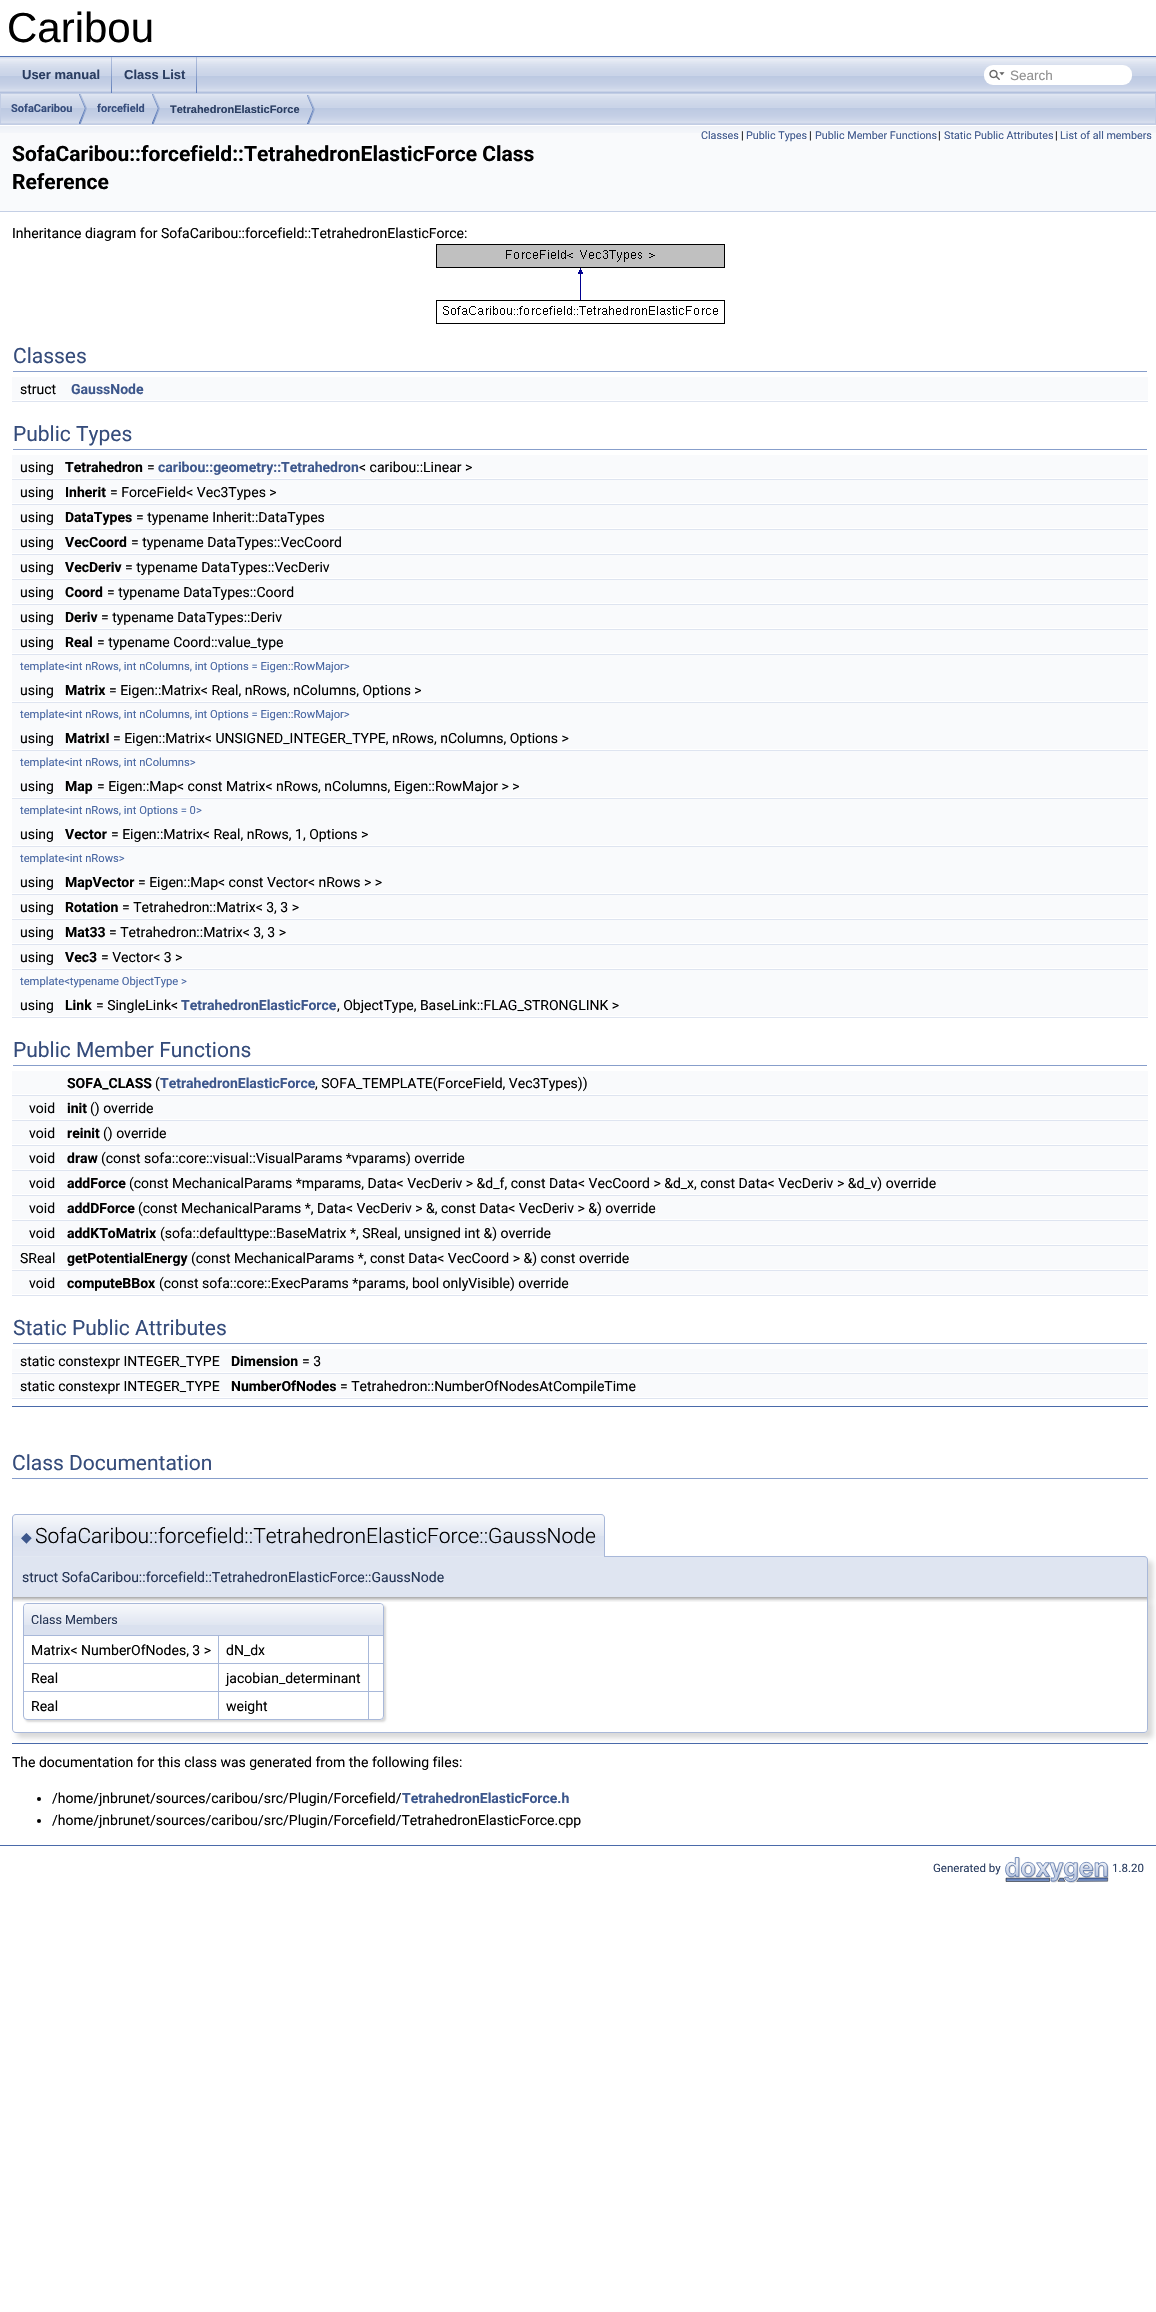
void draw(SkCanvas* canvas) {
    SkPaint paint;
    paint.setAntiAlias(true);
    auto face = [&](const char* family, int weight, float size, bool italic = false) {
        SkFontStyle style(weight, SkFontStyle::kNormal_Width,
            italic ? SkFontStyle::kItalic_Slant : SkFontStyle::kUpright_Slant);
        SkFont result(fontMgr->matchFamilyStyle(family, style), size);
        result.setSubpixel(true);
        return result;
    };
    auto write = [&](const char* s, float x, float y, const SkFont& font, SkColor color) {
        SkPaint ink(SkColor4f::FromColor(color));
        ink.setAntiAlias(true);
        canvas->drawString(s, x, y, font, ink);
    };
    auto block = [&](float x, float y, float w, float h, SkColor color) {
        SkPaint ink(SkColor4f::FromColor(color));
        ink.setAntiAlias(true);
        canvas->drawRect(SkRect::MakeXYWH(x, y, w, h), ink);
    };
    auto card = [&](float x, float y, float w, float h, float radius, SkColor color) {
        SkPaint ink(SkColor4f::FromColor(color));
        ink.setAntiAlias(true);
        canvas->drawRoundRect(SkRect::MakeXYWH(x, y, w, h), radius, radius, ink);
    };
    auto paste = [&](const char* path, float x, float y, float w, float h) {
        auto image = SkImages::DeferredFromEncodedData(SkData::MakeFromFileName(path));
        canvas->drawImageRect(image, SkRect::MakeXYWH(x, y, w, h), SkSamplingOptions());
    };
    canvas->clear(SK_ColorWHITE);
    block(0, 56, 1156, 1, SkColorSetRGB(83, 115, 180));
    auto kFont1 = face("Liberation Sans", 400, 42);
    write("Caribou", 7, 42, kFont1, SK_ColorBLACK);
    paste("pic1.png", 0, 57, 1156, 36);
    paste("pic2.png", 111, 57, 1, 36);
    auto kFont2 = face("Liberation Sans", 700, 13);
    write("User manual", 22, 79, kFont2, SkColorSetRGB(42, 61, 97));
    paste("pic2.png", 196, 57, 1, 36);
    write("Class List", 124, 79, kFont2, SkColorSetRGB(42, 61, 97));
    card(984, 65, 148, 20, 9, SK_ColorWHITE);
    paste("pic3.png", 989, 69, 16, 11);
    auto kFont3 = face("Liberation Sans", 400, 13.5f);
    write("Search", 1010, 80, kFont3, SkColorSetRGB(144, 144, 144));
    paste("pic4.png", 1, 94, 1154, 30);
    paint.setStyle(SkPaint::kStroke_Style);
    paint.setStrokeWidth(1);
    paint.setColor(SkColorSetRGB(194, 205, 228));
    canvas->drawRect(SkRect::MakeXYWH(0.5f, 93.5f, 1155, 31), paint);
    paste("pic5.png", 79, 94, 8, 30);
    auto kFont4 = face("Roboto", 700, 11);
    write("SofaCaribou", 11, 112, kFont4, SkColorSetRGB(53, 76, 123));
    paste("pic5.png", 152, 94, 8, 30);
    write("forcefield", 97, 112, kFont4, SkColorSetRGB(53, 76, 123));
    paste("pic6.png", 307, 95, 8, 29);
    auto kFont5 = face("Liberation Sans", 700, 11);
    write("TetrahedronElasticForce", 170, 113, kFont5, SkColorSetRGB(42, 61, 97));
    block(0, 133, 1156, 78, SkColorSetRGB(249, 250, 252));
    paste("pic7.png", 0, 125, 1156, 8);
    block(0, 211, 1156, 1, SkColorSetRGB(196, 207, 229));
    auto kFont6 = face("Roboto", 400, 10.75f);
    write("Classes", 701, 139, kFont6, SkColorSetRGB(61, 87, 140));
    write("|", 741, 139, kFont6, SK_ColorBLACK);
    write("Public Types", 746, 139, kFont6, SkColorSetRGB(61, 87, 140));
    write("|", 809, 139, kFont6, SK_ColorBLACK);
    write("Public Member Functions", 815, 139, kFont6, SkColorSetRGB(61, 87, 140));
    write("|", 938, 139, kFont6, SK_ColorBLACK);
    write("Static Public Attributes", 944, 139, kFont6, SkColorSetRGB(61, 87, 140));
    write("|", 1055, 139, kFont6, SK_ColorBLACK);
    write("List of all members", 1060, 139, kFont6, SkColorSetRGB(61, 87, 140));
    auto kFont7 = face("Roboto", 700, 21);
    write("SofaCaribou::forcefield::TetrahedronElasticForce Class", 12, 161, kFont7, SK_ColorBLACK);
    write("Reference", 12, 189, kFont7, SK_ColorBLACK);
    auto kFont8 = face("Roboto", 400, 14);
    write("Inheritance diagram for SofaCaribou::forcefield::TetrahedronElasticForce:", 12, 238, kFont8, SK_ColorBLACK);
    paste("pic8.png", 436, 244, 289, 80);
    block(13, 371, 1134, 1, SkColorSetRGB(135, 158, 203));
    auto kFont9 = face("Roboto", 400, 21);
    write("Classes", 13, 363, kFont9, SkColorSetRGB(53, 76, 123));
    block(12, 377, 1136, 23, SkColorSetRGB(249, 250, 252));
    write("struct", 20, 394, kFont8, SK_ColorBLACK);
    auto kFont10 = face("Roboto", 700, 14);
    write("GaussNode", 71, 394, kFont10, SkColorSetRGB(61, 87, 140));
    block(12, 401, 1136, 1, SkColorSetRGB(222, 228, 240));
    block(13, 449, 1134, 1, SkColorSetRGB(135, 158, 203));
    write("Public Types", 13, 441, kFont9, SkColorSetRGB(53, 76, 123));
    block(12, 455, 1136, 23, SkColorSetRGB(249, 250, 252));
    write("using", 20, 472, kFont8, SK_ColorBLACK);
    write("Tetrahedron", 65, 472, kFont10, SK_ColorBLACK);
    write("=", 147, 472, kFont8, SK_ColorBLACK);
    write("caribou::geometry::Tetrahedron", 158, 472, kFont10, SkColorSetRGB(61, 87, 140));
    write("< caribou::Linear >", 359, 472, kFont8, SK_ColorBLACK);
    block(12, 479, 1136, 1, SkColorSetRGB(222, 228, 240));
    block(12, 480, 1136, 23, SkColorSetRGB(249, 250, 252));
    write("using", 20, 497, kFont8, SK_ColorBLACK);
    write("Inherit", 65, 497, kFont10, SK_ColorBLACK);
    write("= ForceField< Vec3Types >", 110, 497, kFont8, SK_ColorBLACK);
    block(12, 504, 1136, 1, SkColorSetRGB(222, 228, 240));
    block(12, 505, 1136, 23, SkColorSetRGB(249, 250, 252));
    write("using", 20, 522, kFont8, SK_ColorBLACK);
    write("DataTypes", 65, 522, kFont10, SK_ColorBLACK);
    write("= typename Inherit::DataTypes", 136, 522, kFont8, SK_ColorBLACK);
    block(12, 529, 1136, 1, SkColorSetRGB(222, 228, 240));
    block(12, 530, 1136, 23, SkColorSetRGB(249, 250, 252));
    write("using", 20, 547, kFont8, SK_ColorBLACK);
    write("VecCoord", 65, 547, kFont10, SK_ColorBLACK);
    write("= typename DataTypes::VecCoord", 131, 547, kFont8, SK_ColorBLACK);
    block(12, 554, 1136, 1, SkColorSetRGB(222, 228, 240));
    block(12, 555, 1136, 23, SkColorSetRGB(249, 250, 252));
    write("using", 20, 572, kFont8, SK_ColorBLACK);
    write("VecDeriv", 65, 572, kFont10, SK_ColorBLACK);
    write("= typename DataTypes::VecDeriv", 125, 572, kFont8, SK_ColorBLACK);
    block(12, 579, 1136, 1, SkColorSetRGB(222, 228, 240));
    block(12, 580, 1136, 23, SkColorSetRGB(249, 250, 252));
    write("using", 20, 597, kFont8, SK_ColorBLACK);
    write("Coord", 65, 597, kFont10, SK_ColorBLACK);
    write("= typename DataTypes::Coord", 107, 597, kFont8, SK_ColorBLACK);
    block(12, 604, 1136, 1, SkColorSetRGB(222, 228, 240));
    block(12, 605, 1136, 23, SkColorSetRGB(249, 250, 252));
    write("using", 20, 622, kFont8, SK_ColorBLACK);
    write("Deriv", 65, 622, kFont10, SK_ColorBLACK);
    write("= typename DataTypes::Deriv", 101, 622, kFont8, SK_ColorBLACK);
    block(12, 629, 1136, 1, SkColorSetRGB(222, 228, 240));
    block(12, 630, 1136, 23, SkColorSetRGB(249, 250, 252));
    write("using", 20, 647, kFont8, SK_ColorBLACK);
    write("Real", 65, 647, kFont10, SK_ColorBLACK);
    write("= typename Coord::value_type", 97, 647, kFont8, SK_ColorBLACK);
    block(12, 654, 1136, 1, SkColorSetRGB(222, 228, 240));
    block(12, 655, 1136, 23, SkColorSetRGB(249, 250, 252));
    auto kFont11 = face("Roboto", 400, 11.2f);
    write("template<int nRows, int nColumns, int Options = Eigen::RowMajor>", 20, 670, kFont11, SkColorSetRGB(70, 101, 162));
    block(12, 678, 1136, 23, SkColorSetRGB(249, 250, 252));
    write("using", 20, 695, kFont8, SK_ColorBLACK);
    write("Matrix", 65, 695, kFont10, SK_ColorBLACK);
    write("= Eigen::Matrix< Real, nRows, nColumns, Options >", 109, 695, kFont8, SK_ColorBLACK);
    block(12, 702, 1136, 1, SkColorSetRGB(222, 228, 240));
    block(12, 703, 1136, 23, SkColorSetRGB(249, 250, 252));
    write("template<int nRows, int nColumns, int Options = Eigen::RowMajor>", 20, 718, kFont11, SkColorSetRGB(70, 101, 162));
    block(12, 726, 1136, 23, SkColorSetRGB(249, 250, 252));
    write("using", 20, 743, kFont8, SK_ColorBLACK);
    write("MatrixI", 65, 743, kFont10, SK_ColorBLACK);
    write("= Eigen::Matrix< UNSIGNED_INTEGER_TYPE, nRows, nColumns, Options >", 113, 743, kFont8, SK_ColorBLACK);
    block(12, 750, 1136, 1, SkColorSetRGB(222, 228, 240));
    block(12, 751, 1136, 23, SkColorSetRGB(249, 250, 252));
    write("template<int nRows, int nColumns>", 20, 766, kFont11, SkColorSetRGB(70, 101, 162));
    block(12, 774, 1136, 23, SkColorSetRGB(249, 250, 252));
    write("using", 20, 791, kFont8, SK_ColorBLACK);
    write("Map", 65, 791, kFont10, SK_ColorBLACK);
    write("= Eigen::Map< const Matrix< nRows, nColumns, Eigen::RowMajor > >", 97, 791, kFont8, SK_ColorBLACK);
    block(12, 798, 1136, 1, SkColorSetRGB(222, 228, 240));
    block(12, 799, 1136, 23, SkColorSetRGB(249, 250, 252));
    write("template<int nRows, int Options = 0>", 20, 814, kFont11, SkColorSetRGB(70, 101, 162));
    block(12, 822, 1136, 23, SkColorSetRGB(249, 250, 252));
    write("using", 20, 839, kFont8, SK_ColorBLACK);
    write("Vector", 65, 839, kFont10, SK_ColorBLACK);
    write("= Eigen::Matrix< Real, nRows, 1, Options >", 111, 839, kFont8, SK_ColorBLACK);
    block(12, 846, 1136, 1, SkColorSetRGB(222, 228, 240));
    block(12, 847, 1136, 23, SkColorSetRGB(249, 250, 252));
    write("template<int nRows>", 20, 862, kFont11, SkColorSetRGB(70, 101, 162));
    block(12, 870, 1136, 23, SkColorSetRGB(249, 250, 252));
    write("using", 20, 887, kFont8, SK_ColorBLACK);
    write("MapVector", 65, 887, kFont10, SK_ColorBLACK);
    write("= Eigen::Map< const Vector< nRows > >", 138, 887, kFont8, SK_ColorBLACK);
    block(12, 894, 1136, 1, SkColorSetRGB(222, 228, 240));
    block(12, 895, 1136, 23, SkColorSetRGB(249, 250, 252));
    write("using", 20, 912, kFont8, SK_ColorBLACK);
    write("Rotation", 65, 912, kFont10, SK_ColorBLACK);
    write("= Tetrahedron::Matrix< 3, 3 >", 122, 912, kFont8, SK_ColorBLACK);
    block(12, 919, 1136, 1, SkColorSetRGB(222, 228, 240));
    block(12, 920, 1136, 23, SkColorSetRGB(249, 250, 252));
    write("using", 20, 937, kFont8, SK_ColorBLACK);
    write("Mat33", 65, 937, kFont10, SK_ColorBLACK);
    write("= Tetrahedron::Matrix< 3, 3 >", 109, 937, kFont8, SK_ColorBLACK);
    block(12, 944, 1136, 1, SkColorSetRGB(222, 228, 240));
    block(12, 945, 1136, 23, SkColorSetRGB(249, 250, 252));
    write("using", 20, 962, kFont8, SK_ColorBLACK);
    write("Vec3", 65, 962, kFont10, SK_ColorBLACK);
    write("= Vector< 3 >", 101, 962, kFont8, SK_ColorBLACK);
    block(12, 969, 1136, 1, SkColorSetRGB(222, 228, 240));
    block(12, 970, 1136, 23, SkColorSetRGB(249, 250, 252));
    write("template<typename ObjectType >", 20, 985, kFont11, SkColorSetRGB(70, 101, 162));
    block(12, 993, 1136, 23, SkColorSetRGB(249, 250, 252));
    write("using", 20, 1010, kFont8, SK_ColorBLACK);
    write("Link", 65, 1010, kFont10, SK_ColorBLACK);
    write("= SingleLink<", 96, 1010, kFont8, SK_ColorBLACK);
    write("TetrahedronElasticForce", 181, 1010, kFont10, SkColorSetRGB(61, 87, 140));
    write(", ObjectType, BaseLink::FLAG_STRONGLINK >", 337, 1010, kFont8, SK_ColorBLACK);
    block(12, 1017, 1136, 1, SkColorSetRGB(222, 228, 240));
    block(13, 1065, 1134, 1, SkColorSetRGB(135, 158, 203));
    write("Public Member Functions", 13, 1057, kFont9, SkColorSetRGB(53, 76, 123));
    block(12, 1071, 1136, 23, SkColorSetRGB(249, 250, 252));
    write("SOFA_CLASS", 67, 1088, kFont10, SK_ColorBLACK);
    write("(", 155, 1088, kFont8, SK_ColorBLACK);
    write("TetrahedronElasticForce", 160, 1088, kFont10, SkColorSetRGB(61, 87, 140));
    write(", SOFA_TEMPLATE(ForceField, Vec3Types))", 315, 1088, kFont8, SK_ColorBLACK);
    block(12, 1095, 1136, 1, SkColorSetRGB(222, 228, 240));
    block(12, 1096, 1136, 23, SkColorSetRGB(249, 250, 252));
    write("void", 29, 1113, kFont8, SK_ColorBLACK);
    write("init", 67, 1113, kFont10, SK_ColorBLACK);
    write("() override", 90, 1113, kFont8, SK_ColorBLACK);
    block(12, 1120, 1136, 1, SkColorSetRGB(222, 228, 240));
    block(12, 1121, 1136, 23, SkColorSetRGB(249, 250, 252));
    write("void", 29, 1138, kFont8, SK_ColorBLACK);
    write("reinit", 67, 1138, kFont10, SK_ColorBLACK);
    write("() override", 103, 1138, kFont8, SK_ColorBLACK);
    block(12, 1145, 1136, 1, SkColorSetRGB(222, 228, 240));
    block(12, 1146, 1136, 23, SkColorSetRGB(249, 250, 252));
    write("void", 29, 1163, kFont8, SK_ColorBLACK);
    write("draw", 67, 1163, kFont10, SK_ColorBLACK);
    write("(const sofa::core::visual::VisualParams *vparams) override", 101, 1163, kFont8, SK_ColorBLACK);
    block(12, 1170, 1136, 1, SkColorSetRGB(222, 228, 240));
    block(12, 1171, 1136, 23, SkColorSetRGB(249, 250, 252));
    write("void", 29, 1188, kFont8, SK_ColorBLACK);
    write("addForce", 67, 1188, kFont10, SK_ColorBLACK);
    write("(const MechanicalParams *mparams, Data< VecDeriv > &d_f, const Data< VecCoord > &d_x, const Data< VecDeriv > &d_v) override", 129, 1188, kFont8, SK_ColorBLACK);
    block(12, 1195, 1136, 1, SkColorSetRGB(222, 228, 240));
    block(12, 1196, 1136, 23, SkColorSetRGB(249, 250, 252));
    write("void", 29, 1213, kFont8, SK_ColorBLACK);
    write("addDForce", 67, 1213, kFont10, SK_ColorBLACK);
    write("(const MechanicalParams *, Data< VecDeriv > &, const Data< VecDeriv > &) override", 138, 1213, kFont8, SK_ColorBLACK);
    block(12, 1220, 1136, 1, SkColorSetRGB(222, 228, 240));
    block(12, 1221, 1136, 23, SkColorSetRGB(249, 250, 252));
    write("void", 29, 1238, kFont8, SK_ColorBLACK);
    write("addKToMatrix", 67, 1238, kFont10, SK_ColorBLACK);
    write("(sofa::defaulttype::BaseMatrix *, SReal, unsigned int &) override", 160, 1238, kFont8, SK_ColorBLACK);
    block(12, 1245, 1136, 1, SkColorSetRGB(222, 228, 240));
    block(12, 1246, 1136, 23, SkColorSetRGB(249, 250, 252));
    write("SReal", 20, 1263, kFont8, SK_ColorBLACK);
    write("getPotentialEnergy", 67, 1263, kFont10, SK_ColorBLACK);
    write("(const MechanicalParams *, const Data< VecCoord > &) const override", 191, 1263, kFont8, SK_ColorBLACK);
    block(12, 1270, 1136, 1, SkColorSetRGB(222, 228, 240));
    block(12, 1271, 1136, 23, SkColorSetRGB(249, 250, 252));
    write("void", 29, 1288, kFont8, SK_ColorBLACK);
    write("computeBBox", 67, 1288, kFont10, SK_ColorBLACK);
    write("(const sofa::core::ExecParams *params, bool onlyVisible) override", 159, 1288, kFont8, SK_ColorBLACK);
    block(12, 1295, 1136, 1, SkColorSetRGB(222, 228, 240));
    block(13, 1343, 1134, 1, SkColorSetRGB(135, 158, 203));
    write("Static Public Attributes", 13, 1335, kFont9, SkColorSetRGB(53, 76, 123));
    block(12, 1349, 1136, 23, SkColorSetRGB(249, 250, 252));
    write("static constexpr INTEGER_TYPE", 20, 1366, kFont8, SK_ColorBLACK);
    write("Dimension", 231, 1366, kFont10, SK_ColorBLACK);
    write("= 3", 302, 1366, kFont8, SK_ColorBLACK);
    block(12, 1373, 1136, 1, SkColorSetRGB(222, 228, 240));
    block(12, 1374, 1136, 23, SkColorSetRGB(249, 250, 252));
    write("static constexpr INTEGER_TYPE", 20, 1391, kFont8, SK_ColorBLACK);
    write("NumberOfNodes", 231, 1391, kFont10, SK_ColorBLACK);
    write("= Tetrahedron::NumberOfNodesAtCompileTime", 340, 1391, kFont8, SK_ColorBLACK);
    block(12, 1398, 1136, 1, SkColorSetRGB(222, 228, 240));
    block(12, 1406, 1136, 1, SkColorSetRGB(74, 106, 170));
    block(12, 1478, 1136, 1, SkColorSetRGB(135, 158, 203));
    write("Class Documentation", 12, 1470, kFont9, SkColorSetRGB(53, 76, 123));
    paint.setStyle(SkPaint::kFill_Style);
    paint.setColor(SkColorSetARGB(38, 0, 0, 0));
    paint.setMaskFilter(SkMaskFilter::MakeBlur(kNormal_SkBlurStyle, 2.5f));
    canvas->drawRoundRect(SkRect::MakeXYWH(17, 1561, 1136, 41), 4, 4, paint);
    paint.setMaskFilter(nullptr);
    paint.setColor(SkColorSetRGB(223, 229, 241));
    canvas->drawPath(SkPathBuilder().moveTo(12, 1556).lineTo(1144, 1556).cubicTo(1146, 1556, 1148, 1558, 1148, 1560).lineTo(1148, 1597).lineTo(12, 1597).close().detach(), paint);
    paint.setColor(SkColorSetRGB(168, 184, 217));
    canvas->drawPath(SkPathBuilder(SkPathFillType::kEvenOdd).moveTo(12, 1556).lineTo(1144, 1556).cubicTo(1146, 1556, 1148, 1558, 1148, 1560).lineTo(1148, 1597).lineTo(12, 1597).close().moveTo(13, 1557).lineTo(1144, 1557).cubicTo(1146, 1557, 1147, 1558, 1147, 1560).lineTo(1147, 1597).lineTo(13, 1597).close().detach(), paint);
    paint.setColor(SkColorSetRGB(226, 232, 242));
    canvas->drawPath(SkPathBuilder().moveTo(16, 1514).lineTo(601, 1514).cubicTo(603, 1514, 605, 1516, 605, 1518).lineTo(605, 1557).lineTo(12, 1557).lineTo(12, 1518).cubicTo(12, 1516, 14, 1514, 16, 1514).close().detach(), paint);
    paste("pic9.png", 12, 1515, 593, 41);
    paint.setColor(SkColorSetRGB(168, 184, 217));
    canvas->drawPath(SkPathBuilder(SkPathFillType::kEvenOdd).moveTo(16, 1514).lineTo(601, 1514).cubicTo(603, 1514, 605, 1516, 605, 1518).lineTo(605, 1557).lineTo(12, 1557).lineTo(12, 1518).cubicTo(12, 1516, 14, 1514, 16, 1514).close().moveTo(16, 1515).lineTo(601, 1515).cubicTo(603, 1515, 604, 1516, 604, 1518).lineTo(604, 1557).lineTo(13, 1557).lineTo(13, 1518).cubicTo(13, 1516, 14, 1515, 16, 1515).close().detach(), paint);
    auto kFont12 = face("DejaVu Sans", 400, 14);
    write("◆", 21, 1542, kFont12, SkColorSetRGB(61, 87, 140));
    auto kFont13 = face("Roboto", 300, 21);
    write("SofaCaribou::forcefield::TetrahedronElasticForce::GaussNode", 35, 1543, kFont13, SK_ColorBLACK);
    write("struct SofaCaribou::forcefield::TetrahedronElasticForce::GaussNode", 22, 1582, kFont8, SkColorSetRGB(37, 53, 85));
    paint.setColor(SkColorSetARGB(38, 0, 0, 0));
    paint.setMaskFilter(SkMaskFilter::MakeBlur(kNormal_SkBlurStyle, 2.5f));
    canvas->drawRoundRect(SkRect::MakeXYWH(17, 1602, 1136, 136), 4, 4, paint);
    paint.setMaskFilter(nullptr);
    paint.setColor(SK_ColorWHITE);
    canvas->drawPath(SkPathBuilder().moveTo(12, 1597).lineTo(1148, 1597).lineTo(1148, 1729).cubicTo(1148, 1731, 1146, 1733, 1144, 1733).lineTo(16, 1733).cubicTo(14, 1733, 12, 1731, 12, 1729).close().detach(), paint);
    paste("pic10.png", 13, 1597, 1134, 5);
    paint.setColor(SkColorSetRGB(168, 184, 217));
    canvas->drawPath(SkPathBuilder(SkPathFillType::kEvenOdd).moveTo(12, 1597).lineTo(1148, 1597).lineTo(1148, 1729).cubicTo(1148, 1731, 1146, 1733, 1144, 1733).lineTo(16, 1733).cubicTo(14, 1733, 12, 1731, 12, 1729).close().moveTo(13, 1597).lineTo(1147, 1597).lineTo(1147, 1729).cubicTo(1147, 1731, 1146, 1732, 1144, 1732).lineTo(16, 1732).cubicTo(14, 1732, 13, 1731, 13, 1729).close().detach(), paint);
    canvas->save();
    canvas->clipPath(SkPathBuilder(SkPathFillType::kEvenOdd).moveTo(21, 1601).lineTo(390, 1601).lineTo(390, 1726).lineTo(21, 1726).close().moveTo(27, 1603).lineTo(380, 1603).cubicTo(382, 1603, 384, 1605, 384, 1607).lineTo(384, 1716).cubicTo(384, 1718, 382, 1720, 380, 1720).lineTo(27, 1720).cubicTo(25, 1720, 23, 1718, 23, 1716).lineTo(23, 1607).cubicTo(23, 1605, 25, 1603, 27, 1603).close().detach(), true);
    paint.setColor(SkColorSetARGB(38, 0, 0, 0));
    paint.setMaskFilter(SkMaskFilter::MakeBlur(kNormal_SkBlurStyle, 1));
    canvas->drawRoundRect(SkRect::MakeXYWH(25, 1605, 361, 117), 4, 4, paint);
    paint.setMaskFilter(nullptr);
    canvas->restore();
    paint.setStyle(SkPaint::kStroke_Style);
    paint.setColor(SkColorSetRGB(168, 184, 217));
    canvas->drawRoundRect(SkRect::MakeXYWH(23.5f, 1603.5f, 360, 116), 3.5f, 3.5f, paint);
    paste("pic11.png", 24, 1604, 359, 31);
    block(24, 1635, 359, 1, SkColorSetRGB(168, 184, 217));
    auto kFont14 = face("Roboto", 400, 12.5f);
    write("Class Members", 31, 1624, kFont14, SkColorSetRGB(37, 53, 85));
    block(218, 1636, 1, 83, SkColorSetRGB(168, 184, 217));
    block(24, 1663, 195, 1, SkColorSetRGB(168, 184, 217));
    write("Matrix< NumberOfNodes, 3 >", 31, 1655, kFont8, SK_ColorBLACK);
    block(368, 1636, 1, 83, SkColorSetRGB(168, 184, 217));
    block(219, 1663, 164, 1, SkColorSetRGB(168, 184, 217));
    write("dN_dx", 226, 1655, kFont8, SK_ColorBLACK);
    block(24, 1691, 359, 1, SkColorSetRGB(168, 184, 217));
    write("Real", 31, 1683, kFont8, SK_ColorBLACK);
    write("jacobian_determinant", 226, 1683, kFont8, SK_ColorBLACK);
    write("Real", 31, 1711, kFont8, SK_ColorBLACK);
    write("weight", 226, 1711, kFont8, SK_ColorBLACK);
    block(12, 1743, 1136, 1, SkColorSetRGB(74, 106, 170));
    write("The documentation for this class was generated from the following files:", 12, 1767, kFont8, SK_ColorBLACK);
    paint.setStyle(SkPaint::kFill_Style);
    paint.setColor(SK_ColorBLACK);
    canvas->drawCircle(39, 1799, 2, paint);
    write("/home/jnbrunet/sources/caribou/src/Plugin/Forcefield/", 52, 1803, kFont8, SK_ColorBLACK);
    write("TetrahedronElasticForce.h", 402, 1803, kFont10, SkColorSetRGB(61, 87, 140));
    canvas->drawCircle(39, 1821, 2, paint);
    write("/home/jnbrunet/sources/caribou/src/Plugin/Forcefield/TetrahedronElasticForce.cpp", 52, 1825, kFont8, SK_ColorBLACK);
    block(0, 1845, 1156, 1, SkColorSetRGB(74, 106, 170));
    auto kFont15 = face("Roboto", 400, 11.5f);
    write("Generated by", 933, 1872, kFont15, SkColorSetRGB(42, 61, 97));
    paste("pic12.png", 1005, 1857, 104, 26);
    write("1.8.20", 1112, 1872, kFont15, SkColorSetRGB(42, 61, 97));
}
